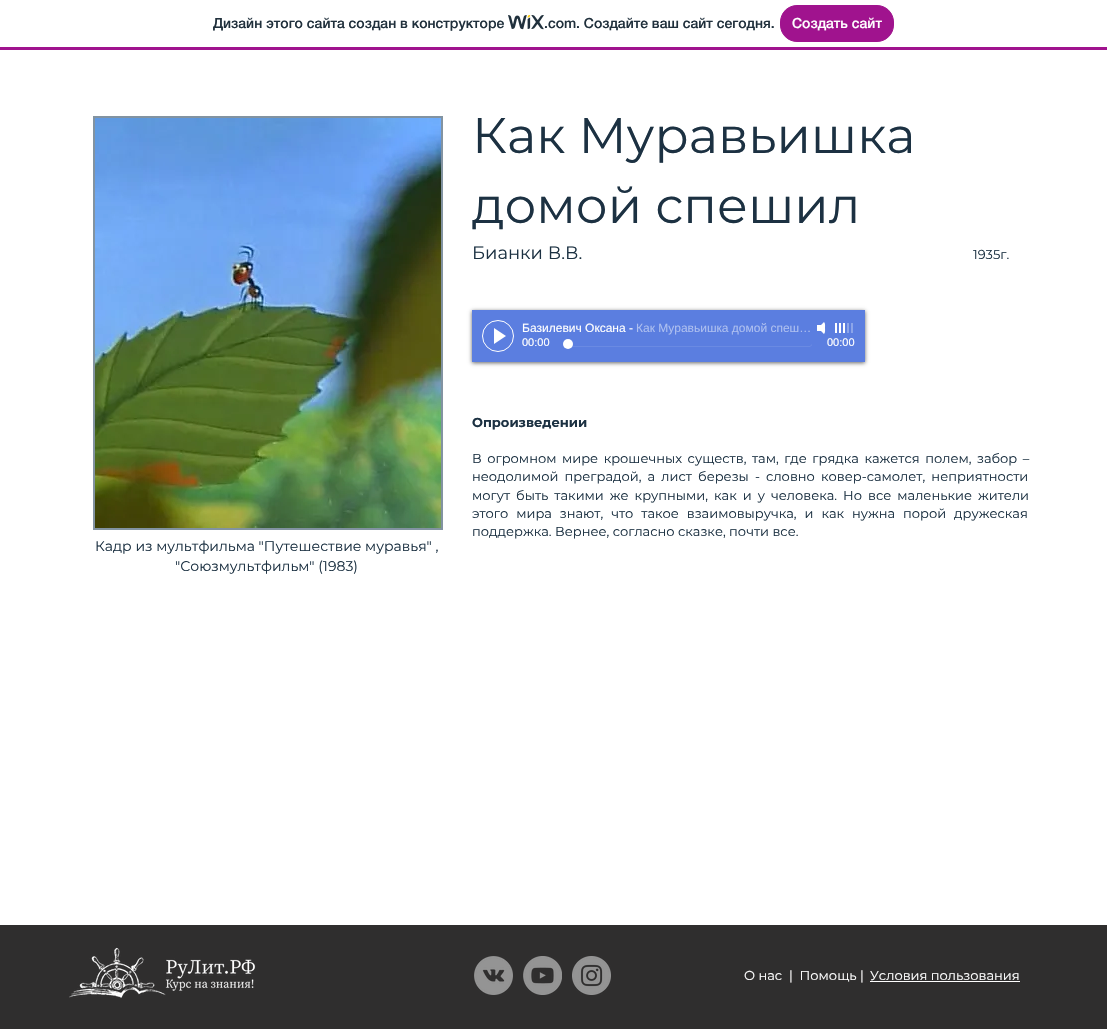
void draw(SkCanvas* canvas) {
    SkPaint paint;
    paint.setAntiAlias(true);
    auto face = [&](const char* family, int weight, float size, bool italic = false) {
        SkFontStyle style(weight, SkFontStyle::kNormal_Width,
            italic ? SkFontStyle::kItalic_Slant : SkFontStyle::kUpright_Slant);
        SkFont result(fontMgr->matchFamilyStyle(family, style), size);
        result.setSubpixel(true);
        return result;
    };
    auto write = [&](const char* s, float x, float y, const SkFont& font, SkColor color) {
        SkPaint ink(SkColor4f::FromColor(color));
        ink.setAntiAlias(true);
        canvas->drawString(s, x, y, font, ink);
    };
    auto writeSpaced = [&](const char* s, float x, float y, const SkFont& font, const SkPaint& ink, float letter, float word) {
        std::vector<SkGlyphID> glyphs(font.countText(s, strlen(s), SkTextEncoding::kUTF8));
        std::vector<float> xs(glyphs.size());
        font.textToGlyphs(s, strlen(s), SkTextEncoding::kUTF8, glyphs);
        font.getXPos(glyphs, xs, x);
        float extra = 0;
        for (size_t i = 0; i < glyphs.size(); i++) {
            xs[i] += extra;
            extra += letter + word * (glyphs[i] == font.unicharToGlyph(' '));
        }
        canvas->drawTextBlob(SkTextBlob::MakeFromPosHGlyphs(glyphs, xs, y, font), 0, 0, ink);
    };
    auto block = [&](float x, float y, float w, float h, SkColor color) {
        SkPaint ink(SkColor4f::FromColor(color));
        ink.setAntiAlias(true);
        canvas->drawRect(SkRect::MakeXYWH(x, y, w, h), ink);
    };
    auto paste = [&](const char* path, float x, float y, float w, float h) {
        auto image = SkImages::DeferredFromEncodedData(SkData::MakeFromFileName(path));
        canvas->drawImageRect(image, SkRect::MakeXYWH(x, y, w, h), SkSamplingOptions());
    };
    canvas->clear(SK_ColorWHITE);
    block(0, 47, 1107, 3, SkColorSetRGB(160, 19, 142));
    auto kFont1 = face("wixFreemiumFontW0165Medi", 500, 14);
    write("Дизайн этого сайта создан в конструкторе", 213, 28, kFont1, SkColorSetRGB(32, 48, 60));
    paste("pic1.png", 508, 15, 36, 15);
    auto kFont2 = face("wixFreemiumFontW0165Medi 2", 500, 14);
    write(".com", 544, 28, kFont2, SkColorSetRGB(32, 48, 60));
    write(". Создайте ваш сайт сегодня.", 576, 28, kFont1, SkColorSetRGB(32, 48, 60));
    paint.setColor(SkColorSetRGB(160, 19, 142));
    canvas->drawRoundRect(SkRect::MakeXYWH(780.5f, 5.5f, 113, 36), 16.5f, 16.5f, paint);
    paint.setStyle(SkPaint::kStroke_Style);
    paint.setStrokeWidth(1);
    canvas->drawRoundRect(SkRect::MakeXYWH(780.5f, 5.5f, 113, 36), 16.5f, 16.5f, paint);
    write("Создать сайт", 792, 28, kFont1, SK_ColorWHITE);
    block(93, 116, 350, 414, SkColorSetRGB(130, 147, 161));
    paste("pic2.png", 95, 118, 346, 410);
    auto kFont3 = face("Montserrat", 400, 50);
    write("Как Муравьишка", 472, 153, kFont3, SkColorSetRGB(28, 49, 66));
    write("домой спешил", 472, 223, kFont3, SkColorSetRGB(28, 49, 66));
    auto kFont4 = face("Montserrat", 400, 18);
    write("Бианки В.В.", 472, 259, kFont4, SkColorSetRGB(28, 49, 66));
    auto kFont5 = face("Montserrat", 400, 13);
    write("1935г.", 973, 259, kFont5, SkColorSetRGB(28, 49, 66));
    auto kFont6 = face("Montserrat", 700, 13);
    write("О произведении", 472, 427, kFont6, SkColorSetRGB(28, 49, 66));
    paint.setStyle(SkPaint::kFill_Style);
    paint.setColor(SkColorSetRGB(28, 49, 66));
    writeSpaced("В огромном мире крошечных существ, там, где грядка кажется полем, забор –", 472, 463, kFont5, paint, 0, 2.1f);
    writeSpaced("неодолимой преградой, а лист березы - словно ковер-самолет, неприятности", 472, 481, kFont5, paint, 0, 2.75f);
    writeSpaced("могут быть такими же крупными, как и у человека. Но все маленькие жители", 472, 500, kFont5, paint, 0, 2.6f);
    writeSpaced("этого мира знают, что такое взаимовыручка, и как нужна порой дружеская", 472, 518, kFont5, paint, 0, 4.5f);
    write("поддержка. Вернее, согласно сказке, почти все.", 472, 536, kFont5, SkColorSetRGB(28, 49, 66));
    paint.setColor(SkColorSetARGB(153, 0, 0, 0));
    paint.setMaskFilter(SkMaskFilter::MakeBlur(kNormal_SkBlurStyle, 2));
    canvas->drawRect(SkRect::MakeXYWH(472, 311, 393, 52), paint);
    paint.setMaskFilter(nullptr);
    block(472, 310, 393, 52, SkColorSetRGB(91, 126, 224));
    paint.setStyle(SkPaint::kStroke_Style);
    paint.setColor(SK_ColorWHITE);
    canvas->drawCircle(498, 336, 15.5f, paint);
    paint.setStyle(SkPaint::kFill_Style);
    canvas->drawPath(SkPathBuilder().moveTo(494, 344).lineTo(494, 328).lineTo(506, 336).close().detach(), paint);
    auto kFont7 = face("Liberation Sans", 400, 12);
    write("Базилевич Оксана -", 522, 332, kFont7, SK_ColorWHITE);
    write("Как Муравьишка домой спеш…", 636, 332, kFont7, SkColorSetRGB(173, 191, 240));
    canvas->drawPath(SkPathBuilder().moveTo(818, 328).lineTo(824, 334).cubicTo(825.5f, 332.5f, 825, 330, 825, 328).cubicTo(825, 326, 825.5f, 323.5f, 824, 322).close().detach(), paint);
    block(817, 325, 4, 6, SK_ColorWHITE);
    block(835, 323, 2, 10, SK_ColorWHITE);
    block(839, 323, 2, 10, SK_ColorWHITE);
    block(843, 323, 2, 10, SK_ColorWHITE);
    block(847, 323, 2, 10, SkColorSetRGB(140, 165, 233));
    block(851, 323, 2, 10, SkColorSetRGB(140, 165, 233));
    auto kFont8 = face("Liberation Sans", 400, 11);
    write("00:00", 522, 346, kFont8, SK_ColorWHITE);
    write("00:00", 827, 346, kFont8, SK_ColorWHITE);
    paint.setColor(SkColorSetRGB(106, 138, 227));
    canvas->drawPath(SkPathBuilder().moveTo(563, 344).lineTo(564, 346).lineTo(566, 347).lineTo(810, 347).lineTo(811, 346).cubicTo(812, 346, 812, 345, 812, 344).lineTo(810, 346).lineTo(566, 346).cubicTo(565, 346, 563, 345, 563, 344).close().detach(), paint);
    paint.setColor(SK_ColorWHITE);
    canvas->drawCircle(568, 344, 5, paint);
    auto kFont9 = face("Montserrat", 400, 14);
    write("Кадр из мультфильма \"Путешествие муравья\" ,", 95, 551, kFont9, SkColorSetRGB(28, 49, 66));
    write("\"Союзмультфильм\" (1983)", 175, 571, kFont9, SkColorSetRGB(28, 49, 66));
    block(0, 925, 1107, 104, SkColorSetRGB(47, 46, 46));
    paste("pic3.png", 69, 947, 187, 51);
    paste("pic4.png", 474, 956, 39, 39);
    paste("pic5.png", 523, 956, 39, 39);
    paste("pic6.png", 572, 956, 39, 39);
    write("О нас  |  Помощь |", 744, 980, kFont5, SK_ColorWHITE);
    write("Условия пользования", 870, 980, kFont5, SK_ColorWHITE);
    block(870, 981, 150, 1, SK_ColorWHITE);
}
